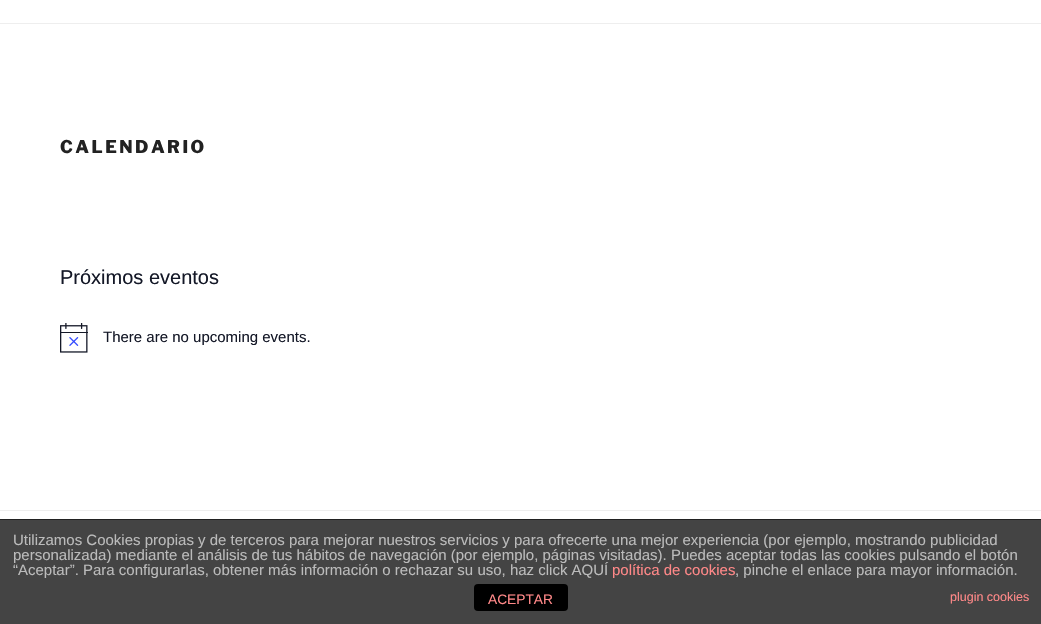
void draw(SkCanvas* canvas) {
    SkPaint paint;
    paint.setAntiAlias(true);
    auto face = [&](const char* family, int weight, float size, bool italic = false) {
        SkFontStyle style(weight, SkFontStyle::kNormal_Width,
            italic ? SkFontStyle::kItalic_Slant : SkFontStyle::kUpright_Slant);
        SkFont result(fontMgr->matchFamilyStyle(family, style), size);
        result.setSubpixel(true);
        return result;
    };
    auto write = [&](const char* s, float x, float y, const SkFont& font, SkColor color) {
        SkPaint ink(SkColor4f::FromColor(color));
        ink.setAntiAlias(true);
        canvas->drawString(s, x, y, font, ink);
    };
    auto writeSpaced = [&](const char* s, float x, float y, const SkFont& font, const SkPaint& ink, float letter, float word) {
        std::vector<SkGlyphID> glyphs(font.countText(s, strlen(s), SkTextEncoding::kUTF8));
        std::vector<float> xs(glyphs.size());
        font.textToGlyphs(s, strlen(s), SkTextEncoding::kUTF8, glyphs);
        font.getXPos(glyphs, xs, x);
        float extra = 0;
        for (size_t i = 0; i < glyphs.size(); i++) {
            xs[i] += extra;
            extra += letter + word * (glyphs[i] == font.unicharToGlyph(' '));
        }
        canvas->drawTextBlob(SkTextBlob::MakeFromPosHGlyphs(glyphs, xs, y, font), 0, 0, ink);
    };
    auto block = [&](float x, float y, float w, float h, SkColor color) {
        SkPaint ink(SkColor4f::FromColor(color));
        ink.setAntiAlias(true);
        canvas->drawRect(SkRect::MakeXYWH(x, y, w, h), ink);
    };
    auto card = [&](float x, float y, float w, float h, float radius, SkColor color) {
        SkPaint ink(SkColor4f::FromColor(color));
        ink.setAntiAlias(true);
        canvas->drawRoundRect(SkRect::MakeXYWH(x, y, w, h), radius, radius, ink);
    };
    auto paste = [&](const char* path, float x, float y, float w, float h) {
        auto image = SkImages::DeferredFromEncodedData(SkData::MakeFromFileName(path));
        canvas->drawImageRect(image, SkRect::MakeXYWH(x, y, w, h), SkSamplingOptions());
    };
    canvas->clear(SK_ColorWHITE);
    block(0, 23, 1041, 1, SkColorSetRGB(238, 238, 238));
    auto kFont1 = face("Libre Franklin", 800, 17.5f);
    paint.setColor(SkColorSetRGB(34, 34, 34));
    writeSpaced("CALENDARIO", 60, 153, kFont1, paint, 2.5f, 0);
    auto kFont2 = face("Liberation Sans", 400, 20);
    write("Próximos eventos", 60, 284, kFont2, SkColorSetRGB(20, 24, 39));
    paste("pic1.png", 60, 323, 28, 30);
    auto kFont3 = face("Liberation Sans", 400, 15);
    write("There are no upcoming events.", 103, 342, kFont3, SkColorSetRGB(20, 24, 39));
    block(0, 510, 1041, 1, SkColorSetRGB(238, 238, 238));
    block(0, 520, 1041, 104, SkColorSetRGB(68, 68, 68));
    block(0, 519, 1041, 1, SkColorSetRGB(34, 34, 34));
    write("Utilizamos Cookies propias y de terceros para mejorar nuestros servicios y para ofrecerte una mejor experiencia (por ejemplo, mostrando publicidad", 13, 545, kFont3, SkColorSetRGB(187, 187, 187));
    write("personalizada) mediante el análisis de tus hábitos de navegación (por ejemplo, páginas visitadas). Puedes aceptar todas las cookies pulsando el botón", 13, 560, kFont3, SkColorSetRGB(187, 187, 187));
    write("“Aceptar”. Para configurarlas, obtener más información o rechazar su uso, haz click AQUÍ", 13, 575, kFont3, SkColorSetRGB(187, 187, 187));
    write("política de cookies", 612, 575, kFont3, SkColorSetRGB(255, 136, 136));
    write(", pinche el enlace para mayor información.", 735, 575, kFont3, SkColorSetRGB(187, 187, 187));
    auto kFont4 = face("Liberation Sans", 400, 12.5f);
    write("plugin cookies", 950, 601, kFont4, SkColorSetRGB(255, 136, 136));
    card(474, 584, 94, 27, 4, SK_ColorBLACK);
    auto kFont5 = face("Liberation Sans", 400, 13.75f);
    write("ACEPTAR", 488, 604, kFont5, SkColorSetRGB(255, 136, 136));
}
